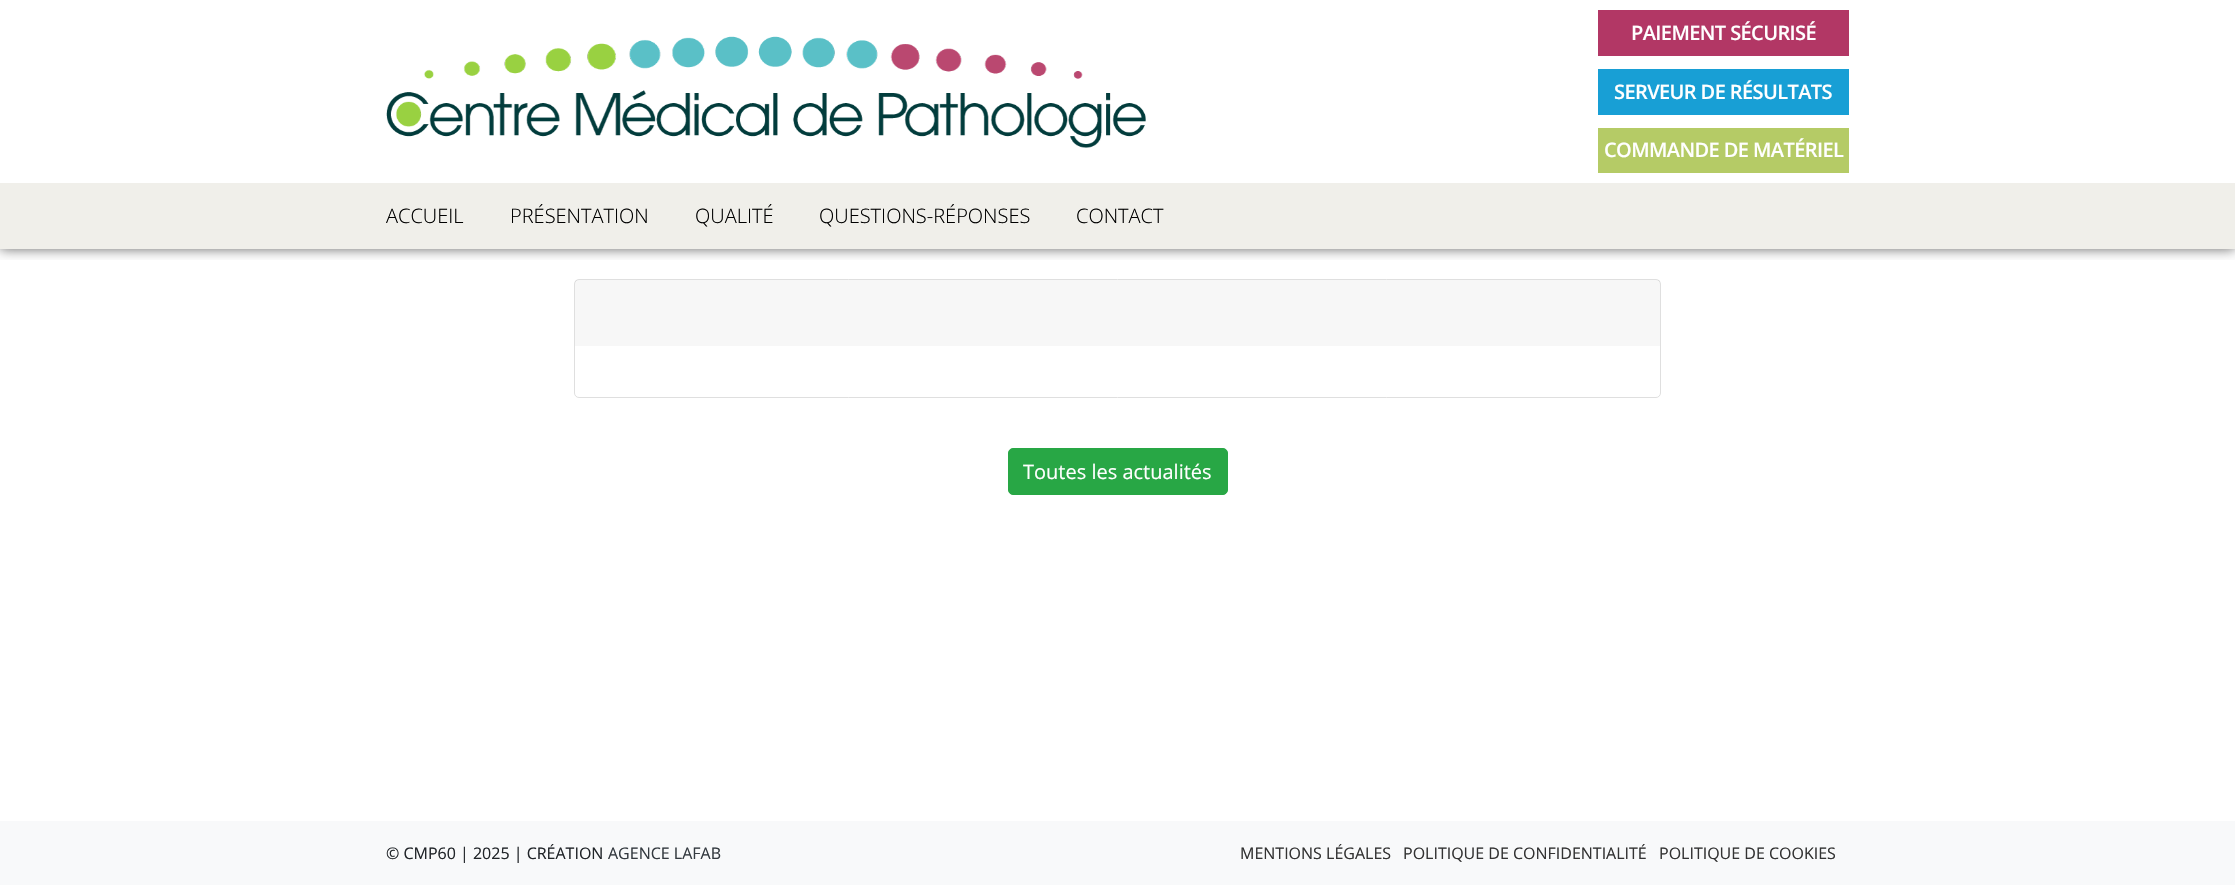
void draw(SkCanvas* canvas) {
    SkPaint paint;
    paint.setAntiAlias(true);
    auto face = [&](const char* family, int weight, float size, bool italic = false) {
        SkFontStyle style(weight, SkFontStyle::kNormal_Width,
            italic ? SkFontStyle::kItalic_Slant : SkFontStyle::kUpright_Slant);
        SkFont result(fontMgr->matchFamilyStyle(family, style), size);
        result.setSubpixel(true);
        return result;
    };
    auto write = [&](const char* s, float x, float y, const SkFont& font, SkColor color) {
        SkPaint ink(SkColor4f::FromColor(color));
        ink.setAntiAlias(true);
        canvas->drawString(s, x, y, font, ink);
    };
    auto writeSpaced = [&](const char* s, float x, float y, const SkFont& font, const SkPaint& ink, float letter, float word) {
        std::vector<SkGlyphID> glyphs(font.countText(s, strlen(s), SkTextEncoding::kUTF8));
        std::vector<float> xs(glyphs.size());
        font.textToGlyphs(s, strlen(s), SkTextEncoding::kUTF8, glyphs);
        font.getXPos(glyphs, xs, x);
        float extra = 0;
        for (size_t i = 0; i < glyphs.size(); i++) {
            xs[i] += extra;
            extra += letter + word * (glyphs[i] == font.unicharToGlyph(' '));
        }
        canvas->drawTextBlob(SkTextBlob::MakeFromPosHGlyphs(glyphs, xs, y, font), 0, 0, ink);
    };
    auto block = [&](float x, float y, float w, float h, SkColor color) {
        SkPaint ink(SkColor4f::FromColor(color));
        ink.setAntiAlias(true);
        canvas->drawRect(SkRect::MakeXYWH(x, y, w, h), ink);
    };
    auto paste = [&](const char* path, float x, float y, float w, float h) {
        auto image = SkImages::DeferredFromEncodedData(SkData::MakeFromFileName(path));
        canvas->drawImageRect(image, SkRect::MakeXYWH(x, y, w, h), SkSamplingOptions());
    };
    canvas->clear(SK_ColorWHITE);
    canvas->save();
    canvas->clipRect(SkRect::MakeXYWH(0, 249, 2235, 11));
    paint.setColor(SkColorSetARGB(153, 0, 0, 0));
    paint.setMaskFilter(SkMaskFilter::MakeBlur(kNormal_SkBlurStyle, 6));
    canvas->drawRect(SkRect::MakeXYWH(0, 0, 2235, 249), paint);
    paint.setMaskFilter(nullptr);
    canvas->restore();
    paste("pic1.png", 386, 36, 760, 112);
    block(1598, 10, 251, 46, SkColorSetRGB(178, 55, 101));
    auto kFont1 = face("Open Sans", 600, 20);
    paint.setColor(SK_ColorWHITE);
    writeSpaced("PAIEMENT SÉCURISÉ", 1631, 40, kFont1, paint, -0.6f, 0);
    block(1598, 69, 251, 46, SkColorSetRGB(24, 159, 213));
    writeSpaced("SERVEUR DE RÉSULTATS", 1614, 99, kFont1, paint, -0.6f, 0);
    block(1598, 128, 251, 45, SkColorSetRGB(181, 203, 102));
    writeSpaced("COMMANDE DE MATÉRIEL", 1604, 157, kFont1, paint, -0.6f, 0);
    block(0, 183, 2235, 66, SkColorSetRGB(240, 239, 234));
    auto kFont2 = face("Open Sans", 300, 20);
    write("ACCUEIL", 386, 223, kFont2, SK_ColorBLACK);
    write("PRÉSENTATION", 510, 223, kFont2, SK_ColorBLACK);
    write("QUALITÉ", 695, 223, kFont2, SK_ColorBLACK);
    write("QUESTIONS-RÉPONSES", 819, 223, kFont2, SK_ColorBLACK);
    write("CONTACT", 1076, 223, kFont2, SK_ColorBLACK);
    paint.setStyle(SkPaint::kStroke_Style);
    paint.setStrokeWidth(1);
    paint.setColor(SkColorSetRGB(223, 223, 223));
    canvas->drawRoundRect(SkRect::MakeXYWH(574.5f, 279.5f, 1086, 118), 4.5f, 4.5f, paint);
    block(575, 280, 1085, 66, SkColorSetARGB(8, 0, 0, 0));
    paint.setStyle(SkPaint::kFill_Style);
    paint.setColor(SkColorSetRGB(40, 167, 69));
    canvas->drawRoundRect(SkRect::MakeXYWH(1008.5f, 448.5f, 219, 46), 4.5f, 4.5f, paint);
    paint.setStyle(SkPaint::kStroke_Style);
    canvas->drawRoundRect(SkRect::MakeXYWH(1008.5f, 448.5f, 219, 46), 4.5f, 4.5f, paint);
    auto kFont3 = face("Open Sans", 400, 20);
    write("Toutes les actualités", 1023, 479, kFont3, SK_ColorWHITE);
    block(0, 821, 2235, 64, SkColorSetRGB(248, 249, 250));
    auto kFont4 = face("Open Sans", 400, 16);
    write("© CMP60 | 2025 | CRÉATION", 386, 859, kFont4, SkColorSetRGB(33, 37, 41));
    write("AGENCE LAFAB", 608, 859, kFont4, SkColorSetRGB(52, 58, 64));
    write("MENTIONS LÉGALES", 1240, 859, kFont4, SkColorSetRGB(51, 51, 51));
    write("POLITIQUE DE CONFIDENTIALITÉ", 1403, 859, kFont4, SkColorSetRGB(51, 51, 51));
    write("POLITIQUE DE COOKIES", 1659, 859, kFont4, SkColorSetRGB(51, 51, 51));
}
